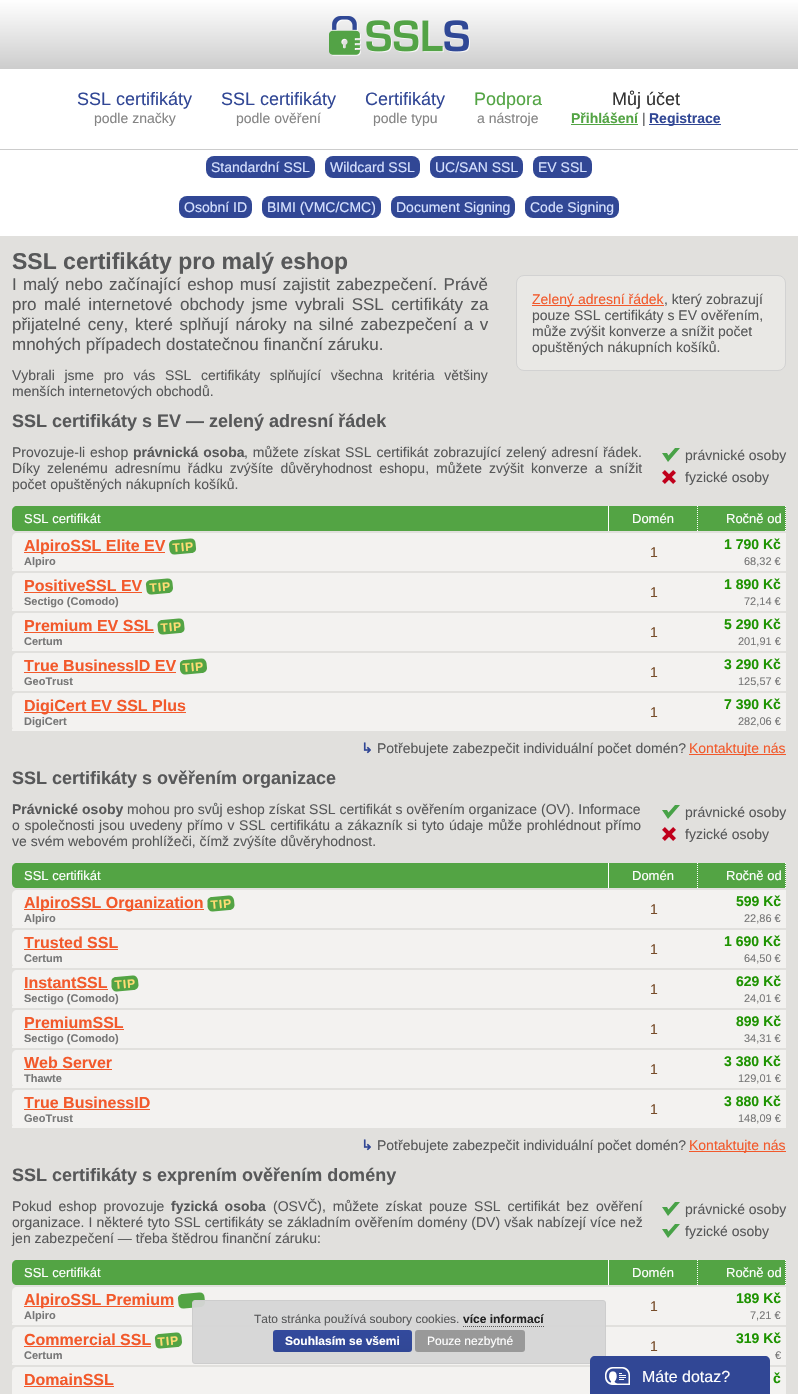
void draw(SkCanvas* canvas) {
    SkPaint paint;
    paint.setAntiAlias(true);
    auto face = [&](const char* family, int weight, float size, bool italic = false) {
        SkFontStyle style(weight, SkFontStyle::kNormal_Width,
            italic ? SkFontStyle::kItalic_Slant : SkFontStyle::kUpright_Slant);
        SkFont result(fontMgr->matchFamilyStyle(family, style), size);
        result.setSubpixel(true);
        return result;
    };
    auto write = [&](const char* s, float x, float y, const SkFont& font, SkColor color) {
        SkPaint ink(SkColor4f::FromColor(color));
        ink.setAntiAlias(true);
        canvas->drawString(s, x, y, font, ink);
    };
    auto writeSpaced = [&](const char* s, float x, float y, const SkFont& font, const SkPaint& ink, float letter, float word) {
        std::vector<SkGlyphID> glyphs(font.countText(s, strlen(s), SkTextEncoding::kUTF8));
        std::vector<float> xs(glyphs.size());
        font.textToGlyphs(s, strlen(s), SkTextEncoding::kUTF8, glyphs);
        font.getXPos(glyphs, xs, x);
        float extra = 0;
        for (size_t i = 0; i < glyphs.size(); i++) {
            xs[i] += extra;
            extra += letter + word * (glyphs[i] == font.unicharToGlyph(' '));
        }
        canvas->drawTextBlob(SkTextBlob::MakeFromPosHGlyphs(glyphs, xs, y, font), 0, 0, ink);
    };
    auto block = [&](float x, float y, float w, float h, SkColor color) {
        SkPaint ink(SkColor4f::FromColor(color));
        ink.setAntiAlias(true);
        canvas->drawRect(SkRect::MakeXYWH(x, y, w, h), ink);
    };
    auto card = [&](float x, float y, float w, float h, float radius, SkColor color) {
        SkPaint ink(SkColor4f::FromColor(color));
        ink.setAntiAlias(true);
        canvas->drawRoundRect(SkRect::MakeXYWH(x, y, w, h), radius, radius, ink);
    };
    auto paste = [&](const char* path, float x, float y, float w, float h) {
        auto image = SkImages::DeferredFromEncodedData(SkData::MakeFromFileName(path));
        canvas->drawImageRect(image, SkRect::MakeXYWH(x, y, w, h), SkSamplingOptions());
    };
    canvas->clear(SK_ColorWHITE);
    paste("pic1.png", 0, 0, 798, 69);
    paste("pic2.png", 329, 16, 141, 40);
    auto kFont1 = face("Liberation Sans", 400, 18);
    write("SSL certifikáty", 77, 105, kFont1, SkColorSetRGB(49, 71, 149));
    auto kFont2 = face("Liberation Sans", 400, 14);
    write("podle značky", 94, 123, kFont2, SkColorSetRGB(132, 132, 132));
    write("SSL certifikáty", 221, 105, kFont1, SkColorSetRGB(49, 71, 149));
    write("podle ověření", 236, 123, kFont2, SkColorSetRGB(132, 132, 132));
    write("Certifikáty", 365, 105, kFont1, SkColorSetRGB(49, 71, 149));
    write("podle typu", 373, 123, kFont2, SkColorSetRGB(132, 132, 132));
    write("Podpora", 474, 105, kFont1, SkColorSetRGB(83, 164, 68));
    write("a nástroje", 477, 123, kFont2, SkColorSetRGB(132, 132, 132));
    write("Můj účet", 612, 105, kFont1, SkColorSetRGB(51, 51, 51));
    auto kFont3 = face("Liberation Sans", 700, 14);
    write("Přihlášení", 571, 123, kFont3, SkColorSetRGB(83, 164, 68));
    block(571, 124, 67, 1, SkColorSetRGB(82, 164, 68));
    write("|", 642, 123, kFont2, SkColorSetRGB(87, 88, 89));
    block(649, 124, 72, 1, SkColorSetRGB(49, 70, 147));
    write("Registrace", 649, 123, kFont3, SkColorSetRGB(49, 71, 149));
    block(0, 149, 798, 1, SkColorSetRGB(204, 204, 204));
    card(206, 156, 109, 22, 8, SkColorSetRGB(49, 71, 149));
    write("Standardní SSL", 211, 172, kFont2, SkColorSetRGB(214, 225, 255));
    card(325, 156, 95, 22, 8, SkColorSetRGB(49, 71, 149));
    write("Wildcard SSL", 330, 172, kFont2, SkColorSetRGB(214, 225, 255));
    card(430, 156, 93, 22, 8, SkColorSetRGB(49, 71, 149));
    write("UC/SAN SSL", 435, 172, kFont2, SkColorSetRGB(214, 225, 255));
    card(533, 156, 59, 22, 8, SkColorSetRGB(49, 71, 149));
    write("EV SSL", 538, 172, kFont2, SkColorSetRGB(214, 225, 255));
    card(179, 196, 73, 22, 8, SkColorSetRGB(49, 71, 149));
    write("Osobní ID", 184, 212, kFont2, SkColorSetRGB(214, 225, 255));
    card(262, 196, 119, 22, 8, SkColorSetRGB(49, 71, 149));
    write("BIMI (VMC/CMC)", 267, 212, kFont2, SkColorSetRGB(214, 225, 255));
    card(391, 196, 124, 22, 8, SkColorSetRGB(49, 71, 149));
    write("Document Signing", 396, 212, kFont2, SkColorSetRGB(214, 225, 255));
    card(525, 196, 94, 22, 8, SkColorSetRGB(49, 71, 149));
    write("Code Signing", 530, 212, kFont2, SkColorSetRGB(214, 225, 255));
    block(0, 236, 798, 1158, SkColorSetRGB(225, 224, 221));
    auto kFont4 = face("Liberation Sans", 700, 23);
    write("SSL certifikáty pro malý eshop", 12, 269, kFont4, SkColorSetRGB(87, 88, 89));
    auto kFont5 = face("Liberation Sans", 400, 17);
    paint.setColor(SkColorSetRGB(87, 88, 89));
    writeSpaced("I malý nebo začínající eshop musí zajistit zabezpečení. Právě", 12, 290, kFont5, paint, 0, 1.5f);
    writeSpaced("pro malé internetové obchody jsme vybrali SSL certifikáty za", 12, 310, kFont5, paint, 0, 2.75f);
    writeSpaced("přijatelné ceny, které splňují nároky na silné zabezpečení a v", 12, 330, kFont5, paint, 0, 2);
    write("mnohých případech dostatečnou finanční záruku.", 12, 350, kFont5, SkColorSetRGB(87, 88, 89));
    paint.setColor(SkColorSetRGB(233, 232, 229));
    canvas->drawRoundRect(SkRect::MakeXYWH(516.5f, 275.5f, 269, 95), 7.5f, 7.5f, paint);
    paint.setStyle(SkPaint::kStroke_Style);
    paint.setStrokeWidth(1);
    paint.setColor(SkColorSetRGB(210, 210, 210));
    canvas->drawRoundRect(SkRect::MakeXYWH(516.5f, 275.5f, 269, 95), 7.5f, 7.5f, paint);
    block(532, 305, 132, 1, SkColorSetRGB(242, 89, 43));
    write("Zelený adresní řádek", 532, 304, kFont2, SkColorSetRGB(242, 89, 43));
    write(", který zobrazují", 664, 304, kFont2, SkColorSetRGB(87, 88, 89));
    write("pouze SSL certifikáty s EV ověřením,", 532, 320, kFont2, SkColorSetRGB(87, 88, 89));
    write("může zvýšit konverze a snížit počet", 532, 336, kFont2, SkColorSetRGB(87, 88, 89));
    write("opuštěných nákupních košíků.", 532, 352, kFont2, SkColorSetRGB(87, 88, 89));
    paint.setStyle(SkPaint::kFill_Style);
    paint.setColor(SkColorSetRGB(87, 88, 89));
    writeSpaced("Vybrali jsme pro vás SSL certifikáty splňující všechna kritéria většiny", 12, 380, kFont2, paint, 0, 5.75f);
    write("menších internetových obchodů.", 12, 396, kFont2, SkColorSetRGB(87, 88, 89));
    auto kFont6 = face("Liberation Sans", 700, 18);
    write("SSL certifikáty s EV — zelený adresní řádek", 12, 427, kFont6, SkColorSetRGB(87, 88, 89));
    writeSpaced("Provozuje-li eshop", 12, 457, kFont2, paint, 0, 1);
    writeSpaced("právnická osoba", 133, 457, kFont3, paint, 0, 1);
    writeSpaced(", můžete získat SSL certifikát zobrazující zelený adresní řádek.", 244, 457, kFont2, paint, 0, 1);
    writeSpaced("Díky zelenému adresnímu řádku zvýšíte důvěryhodnost eshopu, můžete zvýšit konverze a snížit", 12, 473, kFont2, paint, 0, 3.1f);
    write("počet opuštěných nákupních košíků.", 12, 489, kFont2, SkColorSetRGB(87, 88, 89));
    paint.setColor(SkColorSetRGB(72, 162, 71));
    canvas->drawPath(SkPathBuilder(SkPathFillType::kEvenOdd).moveTo(668.5f, 455.5f).lineTo(667, 453).lineTo(662, 453).lineTo(668, 462).lineTo(680, 448).lineTo(675, 448).close().detach(), paint);
    write("právnické osoby", 685, 460, kFont2, SkColorSetRGB(87, 88, 89));
    paste("pic3.png", 662, 470, 14, 14);
    write("fyzické osoby", 685, 482, kFont2, SkColorSetRGB(87, 88, 89));
    paint.setColor(SkColorSetRGB(83, 164, 68));
    canvas->drawPath(SkPathBuilder().moveTo(17, 506).lineTo(609, 506).lineTo(609, 531).lineTo(17, 531).cubicTo(14, 531, 12, 529, 12, 526).lineTo(12, 511).cubicTo(12, 508, 14, 506, 17, 506).close().detach(), paint);
    block(608, 506, 1, 25, SK_ColorWHITE);
    auto kFont7 = face("Liberation Sans", 400, 13);
    write("SSL certifikát", 24, 523, kFont7, SK_ColorWHITE);
    block(609, 506, 177, 25, SkColorSetRGB(83, 164, 68));
    paint.setStyle(SkPaint::kStroke_Style);
    paint.setColor(SK_ColorWHITE);
    paint.setPathEffect(SkDashPathEffect::Make({{1, 1}}, 0));
    canvas->drawPath(SkPathBuilder().moveTo(697.5f, 506).lineTo(697.5f, 531).detach(), paint);
    paint.setPathEffect(nullptr);
    write("Domén", 632, 523, kFont7, SK_ColorWHITE);
    paint.setPathEffect(SkDashPathEffect::Make({{1, 1}}, 0));
    canvas->drawPath(SkPathBuilder().moveTo(785.5f, 506).lineTo(785.5f, 531).detach(), paint);
    paint.setPathEffect(nullptr);
    write("Ročně od", 726, 523, kFont7, SK_ColorWHITE);
    block(12, 569, 5, 2, SkColorSetRGB(243, 242, 240));
    paint.setStyle(SkPaint::kFill_Style);
    paint.setColor(SkColorSetRGB(243, 242, 240));
    canvas->drawPath(SkPathBuilder().moveTo(17, 533).lineTo(609, 533).lineTo(609, 571).lineTo(17, 571).cubicTo(14, 571, 12, 569, 12, 566).lineTo(12, 538).cubicTo(12, 535, 14, 533, 17, 533).close().detach(), paint);
    block(24, 552, 141, 1, SkColorSetRGB(242, 89, 43));
    auto kFont8 = face("Liberation Sans", 700, 16);
    write("AlpiroSSL Elite EV", 24, 551, kFont8, SkColorSetRGB(242, 89, 43));
    paint.setColor(SkColorSetRGB(83, 164, 68));
    canvas->drawPath(SkPathBuilder().moveTo(173.5f, 540).lineTo(190, 538.5f).cubicTo(193, 538, 195.5f, 540, 195.5f, 543).lineTo(196, 548).cubicTo(196.5f, 550.5f, 194.5f, 553, 191.5f, 553).lineTo(175, 554.5f).cubicTo(172, 555, 170, 553, 169.5f, 550).lineTo(169, 545).cubicTo(169, 542.5f, 171, 540, 173.5f, 540).close().detach(), paint);
    auto kFont9 = face("Liberation Sans", 700, 12);
    paint.setColor(SkColorSetRGB(255, 220, 115));
    canvas->save();
    canvas->rotate(-5, 173, 552);
    writeSpaced("TIP", 173, 552, kFont9, paint, 1, 0);
    canvas->restore();
    auto kFont10 = face("Liberation Sans", 700, 11);
    write("Alpiro", 24, 565, kFont10, SkColorSetRGB(119, 119, 119));
    block(609, 533, 177, 38, SkColorSetRGB(243, 242, 240));
    write("1", 650, 557, kFont2, SkColorSetRGB(118, 76, 41));
    write("1 790 Kč", 724, 549, kFont3, SkColorSetRGB(29, 147, 0));
    auto kFont11 = face("Liberation Sans", 400, 11);
    write("68,32 €", 744, 565, kFont11, SkColorSetRGB(119, 119, 119));
    block(12, 609, 5, 2, SkColorSetRGB(243, 242, 240));
    paint.setColor(SkColorSetRGB(243, 242, 240));
    canvas->drawPath(SkPathBuilder().moveTo(17, 573).lineTo(609, 573).lineTo(609, 611).lineTo(17, 611).cubicTo(14, 611, 12, 609, 12, 606).lineTo(12, 578).cubicTo(12, 575, 14, 573, 17, 573).close().detach(), paint);
    write("PositiveSSL EV", 24, 591, kFont8, SkColorSetRGB(242, 89, 43));
    block(24, 592, 118, 1, SkColorSetRGB(242, 89, 43));
    paint.setColor(SkColorSetRGB(83, 164, 68));
    canvas->drawPath(SkPathBuilder().moveTo(150.5f, 580).lineTo(167, 578.5f).cubicTo(170, 578, 172.5f, 580, 172.5f, 583).lineTo(173, 588).cubicTo(173, 590.5f, 171, 593, 168.5f, 593).lineTo(152, 594.5f).cubicTo(149, 595, 146.5f, 593, 146.5f, 590).lineTo(146, 585).cubicTo(145.5f, 582.5f, 148, 580, 150.5f, 580).close().detach(), paint);
    paint.setColor(SkColorSetRGB(255, 220, 115));
    canvas->save();
    canvas->rotate(-5, 150, 592);
    writeSpaced("TIP", 150, 592, kFont9, paint, 1, 0);
    canvas->restore();
    write("Sectigo (Comodo)", 24, 605, kFont10, SkColorSetRGB(119, 119, 119));
    block(609, 573, 177, 38, SkColorSetRGB(243, 242, 240));
    write("1", 650, 597, kFont2, SkColorSetRGB(118, 76, 41));
    write("1 890 Kč", 724, 589, kFont3, SkColorSetRGB(29, 147, 0));
    write("72,14 €", 744, 605, kFont11, SkColorSetRGB(119, 119, 119));
    block(12, 649, 5, 2, SkColorSetRGB(243, 242, 240));
    paint.setColor(SkColorSetRGB(243, 242, 240));
    canvas->drawPath(SkPathBuilder().moveTo(17, 613).lineTo(609, 613).lineTo(609, 651).lineTo(17, 651).cubicTo(14, 651, 12, 649, 12, 646).lineTo(12, 618).cubicTo(12, 615, 14, 613, 17, 613).close().detach(), paint);
    write("Premium EV SSL", 24, 631, kFont8, SkColorSetRGB(242, 89, 43));
    block(24, 632, 130, 1, SkColorSetRGB(242, 89, 43));
    paint.setColor(SkColorSetRGB(83, 164, 68));
    canvas->drawPath(SkPathBuilder().moveTo(162, 620).lineTo(178.5f, 618.5f).cubicTo(181.5f, 618, 184, 620, 184, 623).lineTo(184.5f, 628).cubicTo(185, 630.5f, 183, 633, 180, 633).lineTo(163.5f, 634.5f).cubicTo(160.5f, 635, 158, 633, 158, 630).lineTo(157.5f, 625).cubicTo(157.5f, 622.5f, 159.5f, 620, 162, 620).close().detach(), paint);
    paint.setColor(SkColorSetRGB(255, 220, 115));
    canvas->save();
    canvas->rotate(-5, 161, 632);
    writeSpaced("TIP", 161, 632, kFont9, paint, 1, 0);
    canvas->restore();
    write("Certum", 24, 645, kFont10, SkColorSetRGB(119, 119, 119));
    block(609, 613, 177, 38, SkColorSetRGB(243, 242, 240));
    write("1", 650, 637, kFont2, SkColorSetRGB(118, 76, 41));
    write("5 290 Kč", 724, 629, kFont3, SkColorSetRGB(29, 147, 0));
    write("201,91 €", 738, 645, kFont11, SkColorSetRGB(119, 119, 119));
    block(12, 689, 5, 2, SkColorSetRGB(243, 242, 240));
    paint.setColor(SkColorSetRGB(243, 242, 240));
    canvas->drawPath(SkPathBuilder().moveTo(17, 653).lineTo(609, 653).lineTo(609, 691).lineTo(17, 691).cubicTo(14, 691, 12, 689, 12, 686).lineTo(12, 658).cubicTo(12, 655, 14, 653, 17, 653).close().detach(), paint);
    write("True BusinessID EV", 24, 671, kFont8, SkColorSetRGB(242, 89, 43));
    block(24, 672, 152, 1, SkColorSetRGB(242, 89, 43));
    paint.setColor(SkColorSetRGB(83, 164, 68));
    canvas->drawPath(SkPathBuilder().moveTo(184.5f, 660).lineTo(201, 658.5f).cubicTo(203.5f, 658, 206, 660, 206.5f, 663).lineTo(207, 668).cubicTo(207, 670.5f, 205, 673, 202, 673).lineTo(185.5f, 674.5f).cubicTo(183, 675, 180.5f, 673, 180, 670).lineTo(180, 665).cubicTo(179.5f, 662.5f, 181.5f, 660, 184.5f, 660).close().detach(), paint);
    paint.setColor(SkColorSetRGB(255, 220, 115));
    canvas->save();
    canvas->rotate(-5, 183, 672);
    writeSpaced("TIP", 183, 672, kFont9, paint, 1, 0);
    canvas->restore();
    write("GeoTrust", 24, 685, kFont10, SkColorSetRGB(119, 119, 119));
    block(609, 653, 177, 38, SkColorSetRGB(243, 242, 240));
    write("1", 650, 677, kFont2, SkColorSetRGB(118, 76, 41));
    write("3 290 Kč", 724, 669, kFont3, SkColorSetRGB(29, 147, 0));
    write("125,57 €", 738, 685, kFont11, SkColorSetRGB(119, 119, 119));
    block(12, 729, 5, 2, SkColorSetRGB(243, 242, 240));
    paint.setColor(SkColorSetRGB(243, 242, 240));
    canvas->drawPath(SkPathBuilder().moveTo(17, 693).lineTo(609, 693).lineTo(609, 731).lineTo(17, 731).cubicTo(14, 731, 12, 729, 12, 726).lineTo(12, 698).cubicTo(12, 695, 14, 693, 17, 693).close().detach(), paint);
    block(24, 712, 162, 1, SkColorSetRGB(242, 89, 43));
    write("DigiCert EV SSL Plus", 24, 711, kFont8, SkColorSetRGB(242, 89, 43));
    write("DigiCert", 24, 725, kFont10, SkColorSetRGB(119, 119, 119));
    block(609, 693, 177, 38, SkColorSetRGB(243, 242, 240));
    write("1", 650, 717, kFont2, SkColorSetRGB(118, 76, 41));
    write("7 390 Kč", 724, 709, kFont3, SkColorSetRGB(29, 147, 0));
    write("282,06 €", 738, 725, kFont11, SkColorSetRGB(119, 119, 119));
    auto kFont12 = face("DejaVu Sans", 700, 14);
    write("↳", 361, 753, kFont12, SkColorSetRGB(49, 71, 149));
    write("Potřebujete zabezpečit individuální počet domén?", 377, 753, kFont2, SkColorSetRGB(87, 88, 89));
    block(689, 754, 97, 1, SkColorSetRGB(242, 89, 43));
    write("Kontaktujte nás", 689, 753, kFont2, SkColorSetRGB(242, 89, 43));
    write("SSL certifikáty s ověřením organizace", 12, 784, kFont6, SkColorSetRGB(87, 88, 89));
    write("Právnické osoby", 12, 814, kFont3, SkColorSetRGB(87, 88, 89));
    write("mohou pro svůj eshop získat SSL certifikát s ověřením organizace (OV). Informace", 127, 814, kFont2, SkColorSetRGB(87, 88, 89));
    paint.setColor(SkColorSetRGB(87, 88, 89));
    writeSpaced("o společnosti jsou uvedeny přímo v SSL certifikátu a zákazník si tyto údaje může prohlédnout přímo", 12, 830, kFont2, paint, 0, 0.75f);
    write("ve svém webovém prohlížeči, čímž zvýšíte důvěryhodnost.", 12, 846, kFont2, SkColorSetRGB(87, 88, 89));
    paint.setColor(SkColorSetRGB(72, 162, 71));
    canvas->drawPath(SkPathBuilder(SkPathFillType::kEvenOdd).moveTo(668.5f, 812.5f).lineTo(667, 810).lineTo(662, 810).lineTo(668, 819).lineTo(680, 805).lineTo(675, 805).close().detach(), paint);
    write("právnické osoby", 685, 817, kFont2, SkColorSetRGB(87, 88, 89));
    paste("pic3.png", 662, 827, 14, 14);
    write("fyzické osoby", 685, 839, kFont2, SkColorSetRGB(87, 88, 89));
    paint.setColor(SkColorSetRGB(83, 164, 68));
    canvas->drawPath(SkPathBuilder().moveTo(17, 863).lineTo(609, 863).lineTo(609, 888).lineTo(17, 888).cubicTo(14, 888, 12, 886, 12, 883).lineTo(12, 868).cubicTo(12, 865, 14, 863, 17, 863).close().detach(), paint);
    block(608, 863, 1, 25, SK_ColorWHITE);
    write("SSL certifikát", 24, 880, kFont7, SK_ColorWHITE);
    block(609, 863, 177, 25, SkColorSetRGB(83, 164, 68));
    paint.setStyle(SkPaint::kStroke_Style);
    paint.setColor(SK_ColorWHITE);
    paint.setPathEffect(SkDashPathEffect::Make({{1, 1}}, 0));
    canvas->drawPath(SkPathBuilder().moveTo(697.5f, 863).lineTo(697.5f, 888).detach(), paint);
    paint.setPathEffect(nullptr);
    write("Domén", 632, 880, kFont7, SK_ColorWHITE);
    paint.setPathEffect(SkDashPathEffect::Make({{1, 1}}, 0));
    canvas->drawPath(SkPathBuilder().moveTo(785.5f, 863).lineTo(785.5f, 888).detach(), paint);
    paint.setPathEffect(nullptr);
    write("Ročně od", 726, 880, kFont7, SK_ColorWHITE);
    block(12, 926, 5, 2, SkColorSetRGB(243, 242, 240));
    paint.setStyle(SkPaint::kFill_Style);
    paint.setColor(SkColorSetRGB(243, 242, 240));
    canvas->drawPath(SkPathBuilder().moveTo(17, 890).lineTo(609, 890).lineTo(609, 928).lineTo(17, 928).cubicTo(14, 928, 12, 926, 12, 923).lineTo(12, 895).cubicTo(12, 892, 14, 890, 17, 890).close().detach(), paint);
    block(24, 909, 180, 1, SkColorSetRGB(242, 89, 43));
    write("AlpiroSSL Organization", 24, 908, kFont8, SkColorSetRGB(242, 89, 43));
    paint.setColor(SkColorSetRGB(83, 164, 68));
    canvas->drawPath(SkPathBuilder().moveTo(212, 897).lineTo(228.5f, 895.5f).cubicTo(231, 895, 233.5f, 897, 234, 900).lineTo(234.5f, 905).cubicTo(234.5f, 907.5f, 232.5f, 910, 229.5f, 910).lineTo(213, 911.5f).cubicTo(210.5f, 912, 208, 910, 207.5f, 907).lineTo(207.5f, 902).cubicTo(207, 899.5f, 209, 897, 212, 897).close().detach(), paint);
    paint.setColor(SkColorSetRGB(255, 220, 115));
    canvas->save();
    canvas->rotate(-5, 211, 909);
    writeSpaced("TIP", 211, 909, kFont9, paint, 1, 0);
    canvas->restore();
    write("Alpiro", 24, 922, kFont10, SkColorSetRGB(119, 119, 119));
    block(609, 890, 177, 38, SkColorSetRGB(243, 242, 240));
    write("1", 650, 914, kFont2, SkColorSetRGB(118, 76, 41));
    write("599 Kč", 736, 906, kFont3, SkColorSetRGB(29, 147, 0));
    write("22,86 €", 744, 922, kFont11, SkColorSetRGB(119, 119, 119));
    block(12, 966, 5, 2, SkColorSetRGB(243, 242, 240));
    paint.setColor(SkColorSetRGB(243, 242, 240));
    canvas->drawPath(SkPathBuilder().moveTo(17, 930).lineTo(609, 930).lineTo(609, 968).lineTo(17, 968).cubicTo(14, 968, 12, 966, 12, 963).lineTo(12, 935).cubicTo(12, 932, 14, 930, 17, 930).close().detach(), paint);
    write("Trusted SSL", 24, 948, kFont8, SkColorSetRGB(242, 89, 43));
    block(24, 949, 94, 1, SkColorSetRGB(242, 89, 43));
    write("Certum", 24, 962, kFont10, SkColorSetRGB(119, 119, 119));
    block(609, 930, 177, 38, SkColorSetRGB(243, 242, 240));
    write("1", 650, 954, kFont2, SkColorSetRGB(118, 76, 41));
    write("1 690 Kč", 724, 946, kFont3, SkColorSetRGB(29, 147, 0));
    write("64,50 €", 744, 962, kFont11, SkColorSetRGB(119, 119, 119));
    block(12, 1006, 5, 2, SkColorSetRGB(243, 242, 240));
    canvas->drawPath(SkPathBuilder().moveTo(17, 970).lineTo(609, 970).lineTo(609, 1008).lineTo(17, 1008).cubicTo(14, 1008, 12, 1006, 12, 1003).lineTo(12, 975).cubicTo(12, 972, 14, 970, 17, 970).close().detach(), paint);
    write("InstantSSL", 24, 988, kFont8, SkColorSetRGB(242, 89, 43));
    block(24, 989, 84, 1, SkColorSetRGB(242, 89, 43));
    paint.setColor(SkColorSetRGB(83, 164, 68));
    canvas->drawPath(SkPathBuilder().moveTo(116, 977).lineTo(132.5f, 975.5f).cubicTo(135, 975, 137.5f, 977, 138, 980).lineTo(138.5f, 985).cubicTo(138.5f, 987.5f, 136.5f, 990, 133.5f, 990).lineTo(117, 991.5f).cubicTo(114.5f, 992, 112, 990, 111.5f, 987).lineTo(111.5f, 982).cubicTo(111, 979.5f, 113, 977, 116, 977).close().detach(), paint);
    paint.setColor(SkColorSetRGB(255, 220, 115));
    canvas->save();
    canvas->rotate(-5, 115, 989);
    writeSpaced("TIP", 115, 989, kFont9, paint, 1, 0);
    canvas->restore();
    write("Sectigo (Comodo)", 24, 1002, kFont10, SkColorSetRGB(119, 119, 119));
    block(609, 970, 177, 38, SkColorSetRGB(243, 242, 240));
    write("1", 650, 994, kFont2, SkColorSetRGB(118, 76, 41));
    write("629 Kč", 736, 986, kFont3, SkColorSetRGB(29, 147, 0));
    write("24,01 €", 744, 1002, kFont11, SkColorSetRGB(119, 119, 119));
    block(12, 1046, 5, 2, SkColorSetRGB(243, 242, 240));
    paint.setColor(SkColorSetRGB(243, 242, 240));
    canvas->drawPath(SkPathBuilder().moveTo(17, 1010).lineTo(609, 1010).lineTo(609, 1048).lineTo(17, 1048).cubicTo(14, 1048, 12, 1046, 12, 1043).lineTo(12, 1015).cubicTo(12, 1012, 14, 1010, 17, 1010).close().detach(), paint);
    write("PremiumSSL", 24, 1028, kFont8, SkColorSetRGB(242, 89, 43));
    block(24, 1029, 100, 1, SkColorSetRGB(242, 89, 43));
    write("Sectigo (Comodo)", 24, 1042, kFont10, SkColorSetRGB(119, 119, 119));
    block(609, 1010, 177, 38, SkColorSetRGB(243, 242, 240));
    write("1", 650, 1034, kFont2, SkColorSetRGB(118, 76, 41));
    write("899 Kč", 736, 1026, kFont3, SkColorSetRGB(29, 147, 0));
    write("34,31 €", 744, 1042, kFont11, SkColorSetRGB(119, 119, 119));
    block(12, 1086, 5, 2, SkColorSetRGB(243, 242, 240));
    canvas->drawPath(SkPathBuilder().moveTo(17, 1050).lineTo(609, 1050).lineTo(609, 1088).lineTo(17, 1088).cubicTo(14, 1088, 12, 1086, 12, 1083).lineTo(12, 1055).cubicTo(12, 1052, 14, 1050, 17, 1050).close().detach(), paint);
    write("Web Server", 24, 1068, kFont8, SkColorSetRGB(242, 89, 43));
    block(24, 1069, 88, 1, SkColorSetRGB(242, 89, 43));
    write("Thawte", 24, 1082, kFont10, SkColorSetRGB(119, 119, 119));
    block(609, 1050, 177, 38, SkColorSetRGB(243, 242, 240));
    write("1", 650, 1074, kFont2, SkColorSetRGB(118, 76, 41));
    write("3 380 Kč", 724, 1066, kFont3, SkColorSetRGB(29, 147, 0));
    write("129,01 €", 738, 1082, kFont11, SkColorSetRGB(119, 119, 119));
    block(12, 1126, 5, 2, SkColorSetRGB(243, 242, 240));
    canvas->drawPath(SkPathBuilder().moveTo(17, 1090).lineTo(609, 1090).lineTo(609, 1128).lineTo(17, 1128).cubicTo(14, 1128, 12, 1126, 12, 1123).lineTo(12, 1095).cubicTo(12, 1092, 14, 1090, 17, 1090).close().detach(), paint);
    write("True BusinessID", 24, 1108, kFont8, SkColorSetRGB(242, 89, 43));
    block(24, 1109, 126, 1, SkColorSetRGB(242, 89, 43));
    write("GeoTrust", 24, 1122, kFont10, SkColorSetRGB(119, 119, 119));
    block(609, 1090, 177, 38, SkColorSetRGB(243, 242, 240));
    write("1", 650, 1114, kFont2, SkColorSetRGB(118, 76, 41));
    write("3 880 Kč", 724, 1106, kFont3, SkColorSetRGB(29, 147, 0));
    write("148,09 €", 738, 1122, kFont11, SkColorSetRGB(119, 119, 119));
    write("↳", 361, 1150, kFont12, SkColorSetRGB(49, 71, 149));
    write("Potřebujete zabezpečit individuální počet domén?", 377, 1150, kFont2, SkColorSetRGB(87, 88, 89));
    block(689, 1151, 97, 1, SkColorSetRGB(242, 89, 43));
    write("Kontaktujte nás", 689, 1150, kFont2, SkColorSetRGB(242, 89, 43));
    write("SSL certifikáty s exprením ověřením domény", 12, 1181, kFont6, SkColorSetRGB(87, 88, 89));
    paint.setColor(SkColorSetRGB(87, 88, 89));
    writeSpaced("Pokud eshop provozuje", 12, 1211, kFont2, paint, 0, 3);
    writeSpaced("fyzická osoba", 171, 1211, kFont3, paint, 0, 3);
    writeSpaced("(OSVČ), můžete získat pouze SSL certifikát bez ověření", 273, 1211, kFont2, paint, 0, 3);
    writeSpaced("organizace. I některé tyto SSL certifikáty se základním ověřením domény (DV) však nabízejí více než", 12, 1227, kFont2, paint, 0, 0.25f);
    write("jen zabezpečení — třeba štědrou finanční záruku:", 12, 1243, kFont2, SkColorSetRGB(87, 88, 89));
    paint.setColor(SkColorSetRGB(72, 162, 71));
    canvas->drawPath(SkPathBuilder(SkPathFillType::kEvenOdd).moveTo(668.5f, 1209.5f).lineTo(667, 1207).lineTo(662, 1207).lineTo(668, 1216).lineTo(680, 1202).lineTo(675, 1202).close().moveTo(668.5f, 1231.5f).lineTo(667, 1229).lineTo(662, 1229).lineTo(668, 1238).lineTo(680, 1224).lineTo(675, 1224).close().detach(), paint);
    write("právnické osoby", 685, 1214, kFont2, SkColorSetRGB(87, 88, 89));
    write("fyzické osoby", 685, 1236, kFont2, SkColorSetRGB(87, 88, 89));
    paint.setColor(SkColorSetRGB(83, 164, 68));
    canvas->drawPath(SkPathBuilder().moveTo(17, 1260).lineTo(609, 1260).lineTo(609, 1285).lineTo(17, 1285).cubicTo(14, 1285, 12, 1283, 12, 1280).lineTo(12, 1265).cubicTo(12, 1262, 14, 1260, 17, 1260).close().detach(), paint);
    block(608, 1260, 1, 25, SK_ColorWHITE);
    write("SSL certifikát", 24, 1277, kFont7, SK_ColorWHITE);
    block(609, 1260, 177, 25, SkColorSetRGB(83, 164, 68));
    paint.setStyle(SkPaint::kStroke_Style);
    paint.setColor(SK_ColorWHITE);
    paint.setPathEffect(SkDashPathEffect::Make({{1, 1}}, 0));
    canvas->drawPath(SkPathBuilder().moveTo(697.5f, 1260).lineTo(697.5f, 1285).detach(), paint);
    paint.setPathEffect(nullptr);
    write("Domén", 632, 1277, kFont7, SK_ColorWHITE);
    paint.setPathEffect(SkDashPathEffect::Make({{1, 1}}, 0));
    canvas->drawPath(SkPathBuilder().moveTo(785.5f, 1260).lineTo(785.5f, 1285).detach(), paint);
    paint.setPathEffect(nullptr);
    write("Ročně od", 726, 1277, kFont7, SK_ColorWHITE);
    block(12, 1323, 5, 2, SkColorSetRGB(243, 242, 240));
    paint.setStyle(SkPaint::kFill_Style);
    paint.setColor(SkColorSetRGB(243, 242, 240));
    canvas->drawPath(SkPathBuilder().moveTo(17, 1287).lineTo(609, 1287).lineTo(609, 1325).lineTo(17, 1325).cubicTo(14, 1325, 12, 1323, 12, 1320).lineTo(12, 1292).cubicTo(12, 1289, 14, 1287, 17, 1287).close().detach(), paint);
    block(24, 1306, 150, 1, SkColorSetRGB(242, 89, 43));
    write("AlpiroSSL Premium", 24, 1305, kFont8, SkColorSetRGB(242, 89, 43));
    block(12, 1363, 5, 2, SkColorSetRGB(243, 242, 240));
    canvas->drawPath(SkPathBuilder().moveTo(17, 1327).lineTo(609, 1327).lineTo(609, 1365).lineTo(17, 1365).cubicTo(14, 1365, 12, 1363, 12, 1360).lineTo(12, 1332).cubicTo(12, 1329, 14, 1327, 17, 1327).close().detach(), paint);
    paint.setColor(SkColorSetRGB(83, 164, 68));
    canvas->drawPath(SkPathBuilder().moveTo(182.5f, 1294).lineTo(199, 1292.5f).cubicTo(202, 1292, 204.5f, 1294, 204.5f, 1297).lineTo(205, 1302).cubicTo(205, 1304.5f, 203, 1307, 200.5f, 1307).lineTo(184, 1308.5f).cubicTo(181, 1309, 178.5f, 1307, 178.5f, 1304).lineTo(178, 1299).cubicTo(177.5f, 1296.5f, 180, 1294, 182.5f, 1294).close().moveTo(159.5f, 1334).lineTo(176, 1332.5f).cubicTo(179, 1332, 181, 1334, 181.5f, 1337).lineTo(182, 1342).cubicTo(182, 1344.5f, 180, 1347, 177.5f, 1347).lineTo(160.5f, 1348.5f).cubicTo(158, 1349, 155.5f, 1347, 155.5f, 1344).lineTo(155, 1339).cubicTo(154.5f, 1336.5f, 156.5f, 1334, 159.5f, 1334).close().detach(), paint);
    write("Alpiro", 24, 1319, kFont10, SkColorSetRGB(119, 119, 119));
    block(609, 1287, 177, 38, SkColorSetRGB(243, 242, 240));
    write("1", 650, 1311, kFont2, SkColorSetRGB(118, 76, 41));
    write("189 Kč", 736, 1303, kFont3, SkColorSetRGB(29, 147, 0));
    write("7,21 €", 750, 1319, kFont11, SkColorSetRGB(119, 119, 119));
    write("Commercial SSL", 24, 1345, kFont8, SkColorSetRGB(242, 89, 43));
    block(24, 1346, 127, 1, SkColorSetRGB(242, 89, 43));
    paint.setColor(SkColorSetRGB(255, 220, 115));
    canvas->save();
    canvas->rotate(-5, 158, 1346);
    writeSpaced("TIP", 158, 1346, kFont9, paint, 1, 0);
    canvas->restore();
    write("Certum", 24, 1359, kFont10, SkColorSetRGB(119, 119, 119));
    block(609, 1327, 89, 29, SkColorSetRGB(243, 242, 240));
    write("1", 650, 1351, kFont2, SkColorSetRGB(118, 76, 41));
    block(698, 1327, 88, 38, SkColorSetRGB(243, 242, 240));
    write("319 Kč", 736, 1343, kFont3, SkColorSetRGB(29, 147, 0));
    write("€", 775, 1359, kFont11, SkColorSetRGB(119, 119, 119));
    paint.setColor(SkColorSetRGB(243, 242, 240));
    canvas->drawPath(SkPathBuilder().moveTo(17, 1367).lineTo(609, 1367).lineTo(609, 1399).lineTo(17, 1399).cubicTo(14, 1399, 12, 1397, 12, 1394).lineTo(12, 1372).cubicTo(12, 1369, 14, 1367, 17, 1367).close().detach(), paint);
    write("DomainSSL", 24, 1385, kFont8, SkColorSetRGB(242, 89, 43));
    block(24, 1386, 90, 1, SkColorSetRGB(242, 89, 43));
    block(770, 1367, 16, 27, SkColorSetRGB(243, 242, 240));
    write("č", 773, 1383, kFont3, SkColorSetRGB(29, 147, 0));
    paint.setColor(SkColorSetARGB(242, 213, 213, 213));
    canvas->drawRoundRect(SkRect::MakeXYWH(192.5f, 1300.5f, 413, 63), 2.5f, 2.5f, paint);
    paint.setStyle(SkPaint::kStroke_Style);
    paint.setColor(SkColorSetRGB(205, 205, 205));
    canvas->drawRoundRect(SkRect::MakeXYWH(192.5f, 1300.5f, 413, 63), 2.5f, 2.5f, paint);
    auto kFont13 = face("Liberation Sans", 400, 12);
    write("Tato stránka používá soubory cookies.", 254, 1323, kFont13, SkColorSetRGB(87, 88, 89));
    write("více informací", 463, 1323, kFont9, SkColorSetRGB(34, 34, 34));
    paint.setColor(SkColorSetRGB(85, 85, 85));
    paint.setPathEffect(SkDashPathEffect::Make({{1, 1}}, 0));
    canvas->drawPath(SkPathBuilder().moveTo(463, 1326.5f).lineTo(544, 1326.5f).detach(), paint);
    paint.setPathEffect(nullptr);
    paste("pic4.png", 273, 1330, 139, 22);
    write("Souhlasím se všemi", 285, 1345, kFont9, SK_ColorWHITE);
    card(415, 1330, 110, 22, 3, SkColorSetRGB(153, 153, 153));
    write("Pouze nezbytné", 427, 1345, kFont13, SK_ColorWHITE);
    paint.setStyle(SkPaint::kFill_Style);
    paint.setColor(SkColorSetRGB(49, 71, 149));
    canvas->drawPath(SkPathBuilder().moveTo(595, 1356).lineTo(765, 1356).cubicTo(768, 1356, 770, 1358, 770, 1361).lineTo(770, 1394).lineTo(590, 1394).lineTo(590, 1361).cubicTo(590, 1358, 592, 1356, 595, 1356).close().detach(), paint);
    paste("pic5.png", 605, 1367, 25, 18);
    auto kFont14 = face("Liberation Sans", 400, 16);
    write("Máte dotaz?", 642, 1382, kFont14, SK_ColorWHITE);
}
